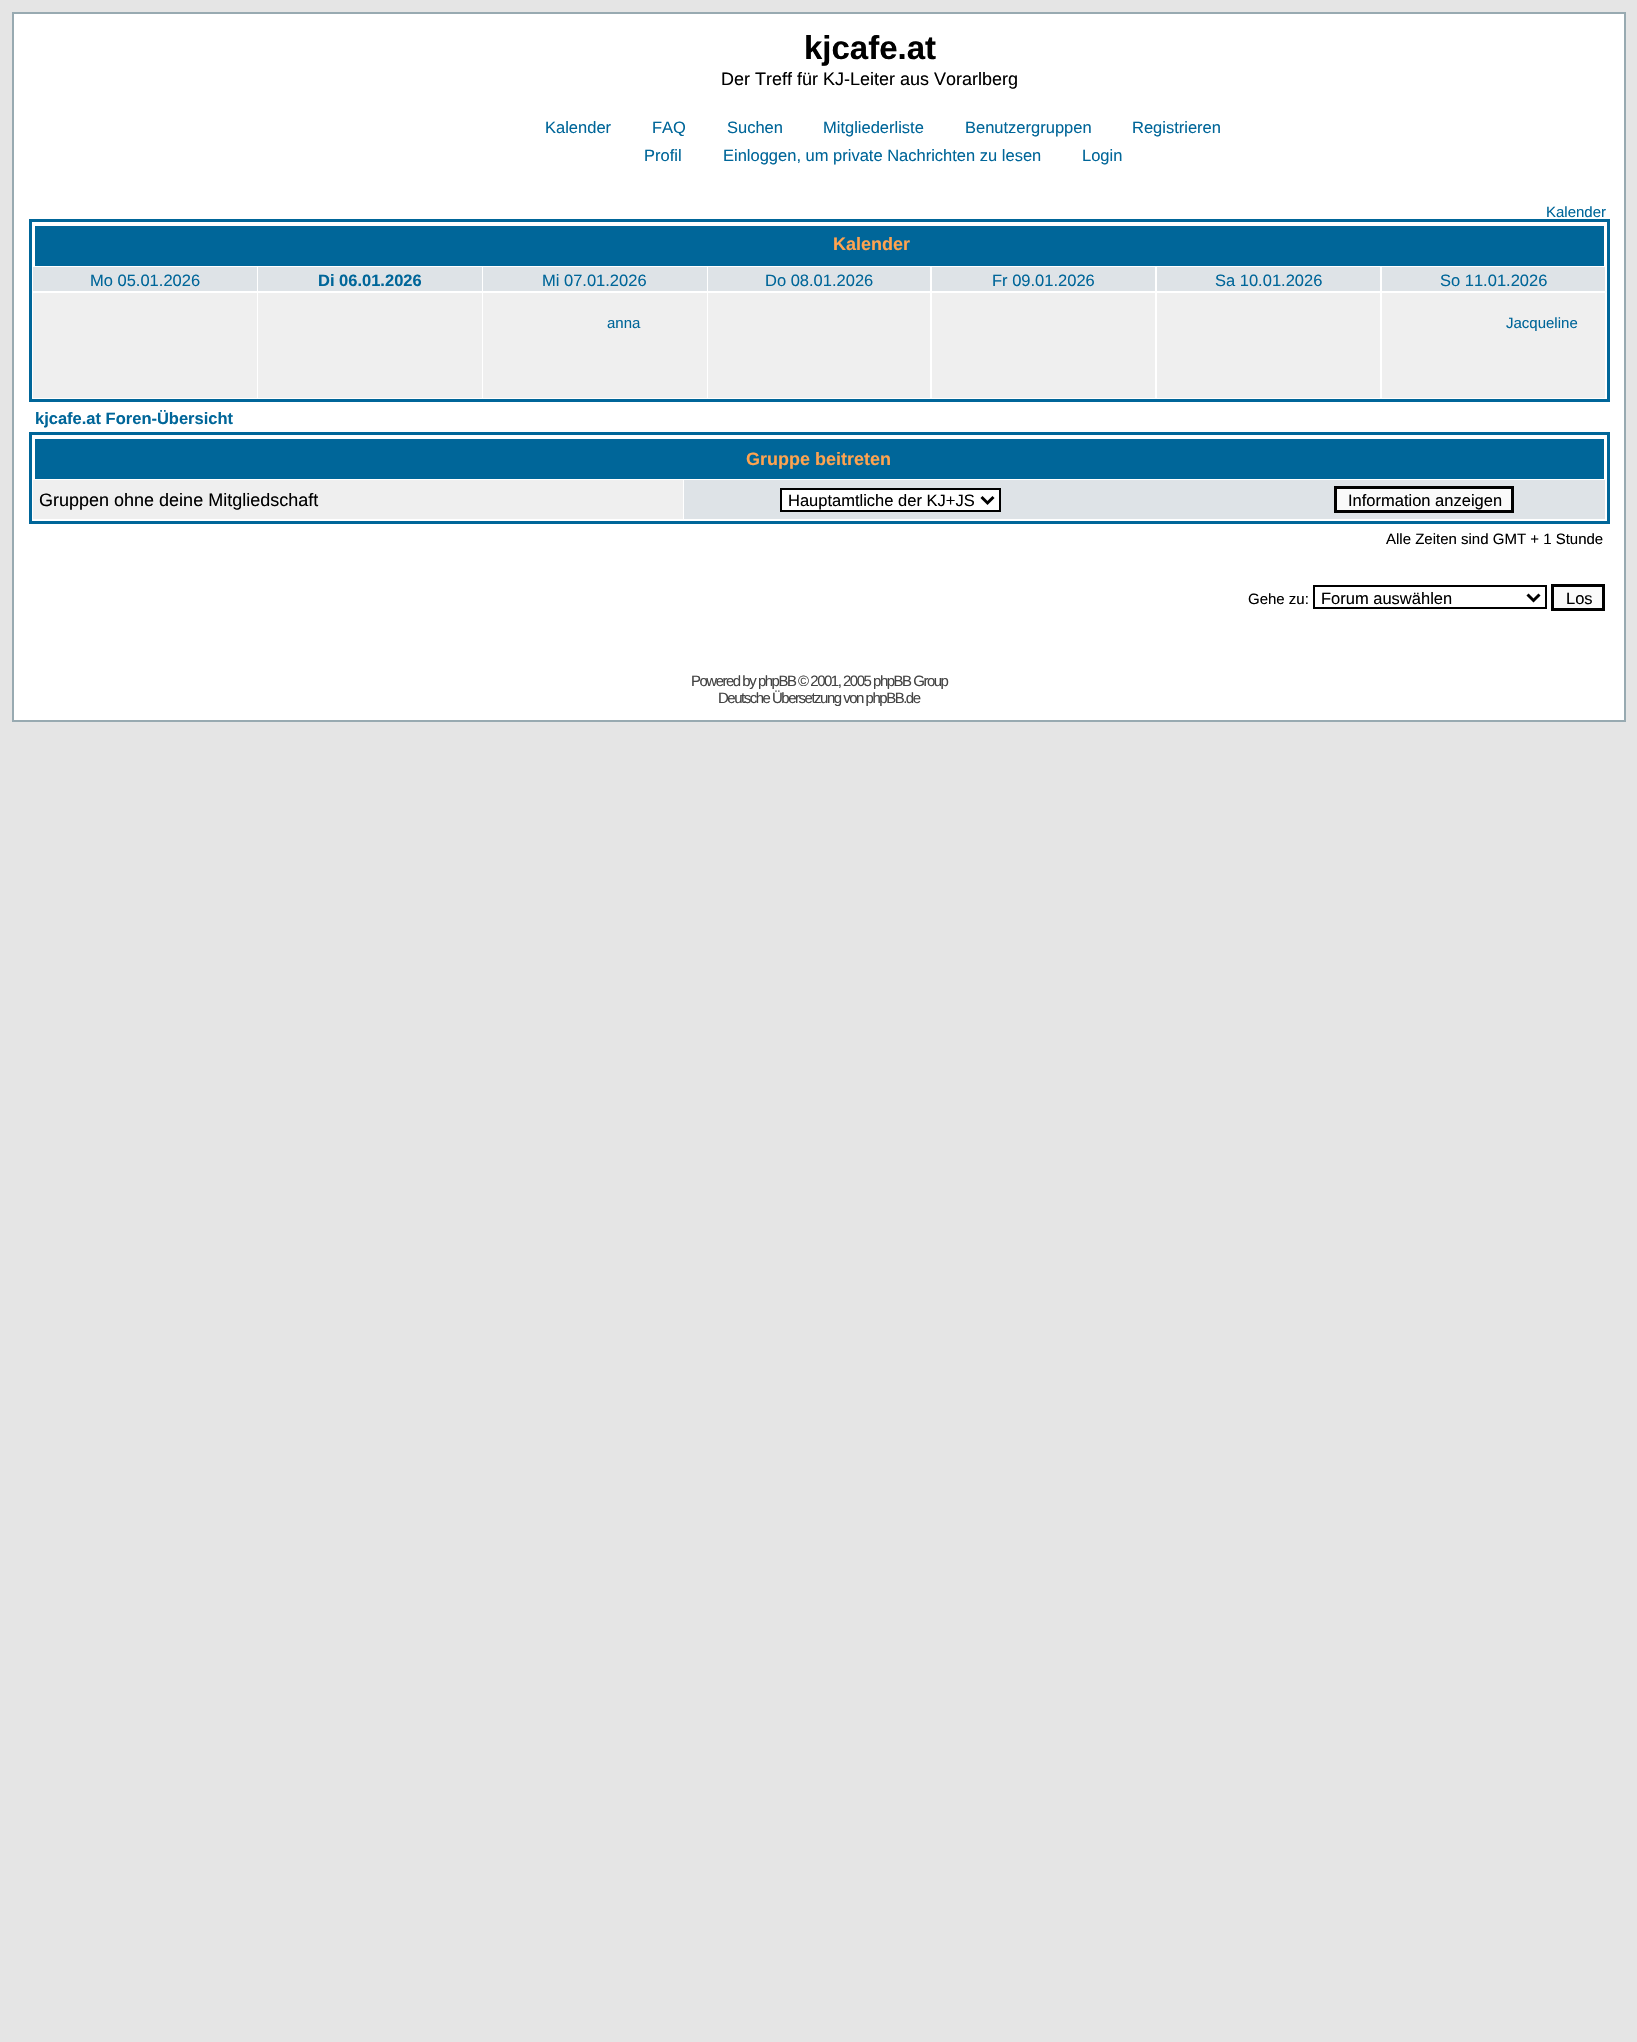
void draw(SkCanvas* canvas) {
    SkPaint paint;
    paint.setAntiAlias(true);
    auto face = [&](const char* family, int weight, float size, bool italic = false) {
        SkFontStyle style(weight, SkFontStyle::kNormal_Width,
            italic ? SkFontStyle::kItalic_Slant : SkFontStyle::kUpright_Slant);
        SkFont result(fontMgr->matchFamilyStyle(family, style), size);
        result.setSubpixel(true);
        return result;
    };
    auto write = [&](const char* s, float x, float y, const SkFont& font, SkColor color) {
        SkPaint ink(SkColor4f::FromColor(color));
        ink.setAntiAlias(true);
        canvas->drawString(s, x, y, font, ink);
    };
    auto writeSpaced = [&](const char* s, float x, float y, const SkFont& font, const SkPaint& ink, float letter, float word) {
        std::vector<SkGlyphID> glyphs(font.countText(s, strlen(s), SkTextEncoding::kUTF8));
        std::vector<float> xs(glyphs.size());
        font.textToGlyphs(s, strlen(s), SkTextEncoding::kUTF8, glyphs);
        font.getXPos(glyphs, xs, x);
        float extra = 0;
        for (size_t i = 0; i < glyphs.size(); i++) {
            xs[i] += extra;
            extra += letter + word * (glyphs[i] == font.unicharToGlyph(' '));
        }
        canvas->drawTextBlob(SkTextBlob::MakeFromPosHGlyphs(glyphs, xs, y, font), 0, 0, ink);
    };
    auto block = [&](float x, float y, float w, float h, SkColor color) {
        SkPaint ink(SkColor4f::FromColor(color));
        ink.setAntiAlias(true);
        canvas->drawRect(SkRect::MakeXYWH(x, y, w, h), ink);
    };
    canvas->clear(SkColorSetRGB(229, 229, 229));
    paint.setColor(SK_ColorWHITE);
    canvas->drawRect(SkRect::MakeXYWH(13, 13, 1612, 708), paint);
    paint.setStyle(SkPaint::kStroke_Style);
    paint.setStrokeWidth(2);
    paint.setColor(SkColorSetRGB(152, 170, 177));
    canvas->drawRect(SkRect::MakeXYWH(13, 13, 1612, 708), paint);
    auto kFont1 = face("Liberation Sans", 700, 33);
    write("kjcafe.at", 804, 59, kFont1, SK_ColorBLACK);
    auto kFont2 = face("Liberation Sans", 400, 18);
    write("Der Treff für KJ-Leiter aus Vorarlberg", 721, 85, kFont2, SK_ColorBLACK);
    auto kFont3 = face("Liberation Sans", 400, 16.5f);
    write("Kalender", 545, 133, kFont3, SkColorSetRGB(0, 102, 153));
    write("FAQ", 652, 133, kFont3, SkColorSetRGB(0, 102, 153));
    write("Suchen", 727, 133, kFont3, SkColorSetRGB(0, 102, 153));
    write("Mitgliederliste", 823, 133, kFont3, SkColorSetRGB(0, 102, 153));
    write("Benutzergruppen", 965, 133, kFont3, SkColorSetRGB(0, 102, 153));
    write("Registrieren", 1132, 133, kFont3, SkColorSetRGB(0, 102, 153));
    write("Profil", 644, 161, kFont3, SkColorSetRGB(0, 102, 153));
    write("Einloggen, um private Nachrichten zu lesen", 723, 161, kFont3, SkColorSetRGB(0, 102, 153));
    write("Login", 1082, 161, kFont3, SkColorSetRGB(0, 102, 153));
    auto kFont4 = face("Liberation Sans", 400, 15);
    write("Kalender", 1546, 217, kFont4, SkColorSetRGB(0, 102, 153));
    paint.setStrokeWidth(3);
    paint.setColor(SkColorSetRGB(0, 102, 153));
    canvas->drawRect(SkRect::MakeXYWH(30.5f, 220.5f, 1578, 180), paint);
    block(35, 226, 1569, 40, SkColorSetRGB(0, 102, 153));
    auto kFont5 = face("Liberation Sans", 700, 18);
    write("Kalender", 833, 250, kFont5, SkColorSetRGB(255, 163, 79));
    block(33, 267, 224, 24, SkColorSetRGB(222, 227, 231));
    write("Mo 05.01.2026", 90, 286, kFont3, SkColorSetRGB(0, 102, 153));
    block(258, 267, 224, 24, SkColorSetRGB(222, 227, 231));
    auto kFont6 = face("Liberation Sans", 700, 16.5f);
    write("Di 06.01.2026", 318, 286, kFont6, SkColorSetRGB(0, 102, 153));
    block(483, 267, 224, 24, SkColorSetRGB(222, 227, 231));
    write("Mi 07.01.2026", 542, 286, kFont3, SkColorSetRGB(0, 102, 153));
    block(708, 267, 222, 24, SkColorSetRGB(222, 227, 231));
    write("Do 08.01.2026", 765, 286, kFont3, SkColorSetRGB(0, 102, 153));
    block(932, 267, 223, 24, SkColorSetRGB(222, 227, 231));
    write("Fr 09.01.2026", 992, 286, kFont3, SkColorSetRGB(0, 102, 153));
    block(1157, 267, 223, 24, SkColorSetRGB(222, 227, 231));
    write("Sa 10.01.2026", 1215, 286, kFont3, SkColorSetRGB(0, 102, 153));
    block(1382, 267, 223, 24, SkColorSetRGB(222, 227, 231));
    write("So 11.01.2026", 1440, 286, kFont3, SkColorSetRGB(0, 102, 153));
    block(33, 293, 224, 105, SkColorSetRGB(239, 239, 239));
    block(258, 293, 224, 105, SkColorSetRGB(239, 239, 239));
    block(483, 293, 224, 105, SkColorSetRGB(239, 239, 239));
    write("anna", 607, 328, kFont4, SkColorSetRGB(0, 102, 153));
    block(708, 293, 222, 105, SkColorSetRGB(239, 239, 239));
    block(932, 293, 223, 105, SkColorSetRGB(239, 239, 239));
    block(1157, 293, 223, 105, SkColorSetRGB(239, 239, 239));
    block(1382, 293, 223, 105, SkColorSetRGB(239, 239, 239));
    write("Jacqueline", 1506, 328, kFont4, SkColorSetRGB(0, 102, 153));
    write("kjcafe.at Foren-Übersicht", 35, 424, kFont6, SkColorSetRGB(0, 102, 153));
    canvas->drawRect(SkRect::MakeXYWH(30.5f, 433.5f, 1578, 89), paint);
    block(35, 439, 1569, 40, SkColorSetRGB(0, 102, 153));
    write("Gruppe beitreten", 746, 465, kFont5, SkColorSetRGB(255, 163, 79));
    block(33, 480, 650, 39, SkColorSetRGB(239, 239, 239));
    write("Gruppen ohne deine Mitgliedschaft", 39, 506, kFont2, SK_ColorBLACK);
    block(684, 480, 921, 39, SkColorSetRGB(222, 227, 231));
    paint.setStyle(SkPaint::kFill_Style);
    paint.setColor(SK_ColorWHITE);
    canvas->drawRect(SkRect::MakeXYWH(781, 489, 219, 22), paint);
    paint.setStyle(SkPaint::kStroke_Style);
    paint.setStrokeWidth(2);
    paint.setColor(SK_ColorBLACK);
    canvas->drawRect(SkRect::MakeXYWH(781, 489, 219, 22), paint);
    paint.setStrokeWidth(3);
    canvas->drawPath(SkPathBuilder().moveTo(981.5f, 497).lineTo(987.5f, 503).lineTo(993.5f, 497).detach(), paint);
    write("Hauptamtliche der KJ+JS", 788, 506, kFont3, SK_ColorBLACK);
    paint.setStyle(SkPaint::kFill_Style);
    paint.setColor(SkColorSetRGB(250, 250, 250));
    canvas->drawRect(SkRect::MakeXYWH(1335.5f, 487.5f, 177, 24), paint);
    paint.setStyle(SkPaint::kStroke_Style);
    paint.setColor(SK_ColorBLACK);
    canvas->drawRect(SkRect::MakeXYWH(1335.5f, 487.5f, 177, 24), paint);
    write("Information anzeigen", 1348, 506, kFont3, SK_ColorBLACK);
    write("Alle Zeiten sind GMT + 1 Stunde", 1386, 544, kFont4, SK_ColorBLACK);
    write("Gehe zu:", 1248, 604, kFont4, SK_ColorBLACK);
    paint.setStrokeWidth(2);
    canvas->drawRect(SkRect::MakeXYWH(1314, 586, 232, 22), paint);
    paint.setStrokeWidth(3);
    canvas->drawPath(SkPathBuilder().moveTo(1527.5f, 594.5f).lineTo(1533.5f, 600.5f).lineTo(1539.5f, 594.5f).detach(), paint);
    write("Forum auswählen", 1321, 604, kFont3, SK_ColorBLACK);
    paint.setStyle(SkPaint::kFill_Style);
    paint.setColor(SkColorSetRGB(250, 250, 250));
    canvas->drawRect(SkRect::MakeXYWH(1552.5f, 585.5f, 51, 24), paint);
    paint.setStyle(SkPaint::kStroke_Style);
    paint.setColor(SK_ColorBLACK);
    canvas->drawRect(SkRect::MakeXYWH(1552.5f, 585.5f, 51, 24), paint);
    write("Los", 1566, 604, kFont3, SK_ColorBLACK);
    paint.setStyle(SkPaint::kFill_Style);
    paint.setColor(SkColorSetRGB(68, 68, 68));
    writeSpaced("Powered by phpBB © 2001, 2005 phpBB Group", 691, 686, kFont4, paint, -1.5f, 0);
    writeSpaced("Deutsche Übersetzung von phpBB.de", 718, 703, kFont4, paint, -1.5f, 0);
}
